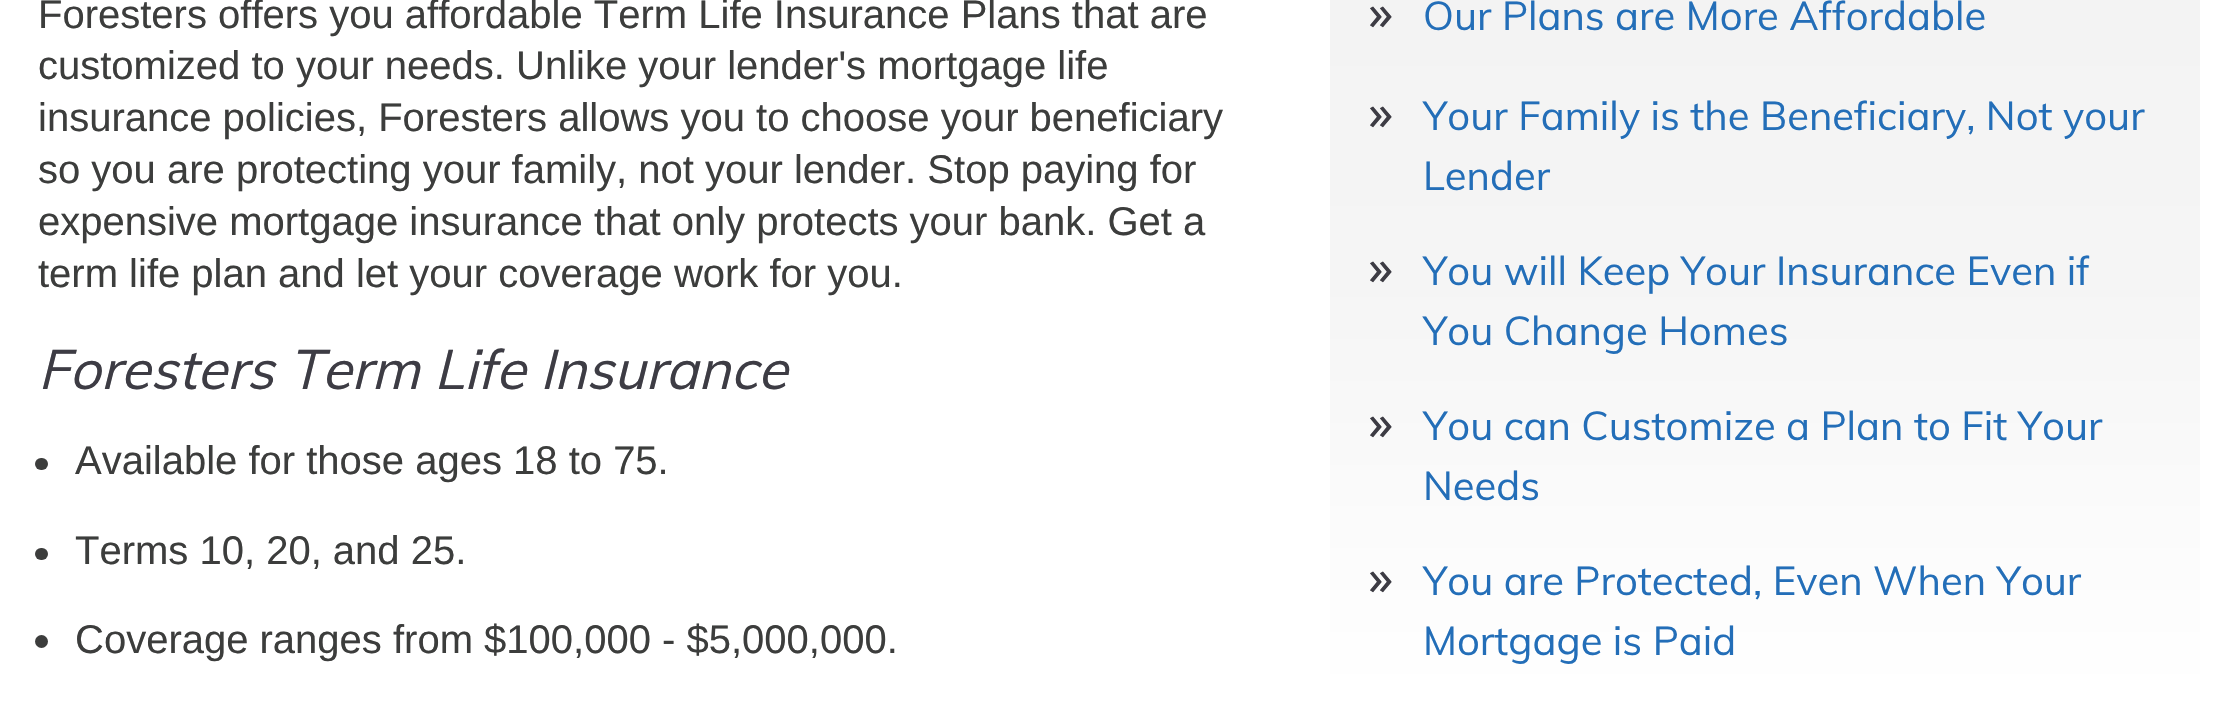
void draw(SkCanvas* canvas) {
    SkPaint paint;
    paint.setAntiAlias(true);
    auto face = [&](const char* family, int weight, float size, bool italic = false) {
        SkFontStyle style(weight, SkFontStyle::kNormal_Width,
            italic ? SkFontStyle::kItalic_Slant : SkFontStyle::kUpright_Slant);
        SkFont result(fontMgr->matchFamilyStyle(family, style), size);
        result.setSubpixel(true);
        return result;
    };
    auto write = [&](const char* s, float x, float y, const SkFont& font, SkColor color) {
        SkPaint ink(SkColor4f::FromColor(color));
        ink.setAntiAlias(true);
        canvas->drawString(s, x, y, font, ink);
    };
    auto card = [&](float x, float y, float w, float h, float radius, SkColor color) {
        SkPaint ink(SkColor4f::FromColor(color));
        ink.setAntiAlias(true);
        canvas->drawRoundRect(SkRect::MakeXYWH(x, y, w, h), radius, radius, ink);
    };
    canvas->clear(SK_ColorWHITE);
    auto kFont1 = face("Liberation Sans", 400, 40);
    write("Foresters offers you affordable Term Life Insurance Plans that are", 38, 28, kFont1, SkColorSetRGB(60, 61, 60));
    write("customized to your needs. Unlike your lender's mortgage life", 38, 79, kFont1, SkColorSetRGB(60, 61, 60));
    write("insurance policies, Foresters allows you to choose your beneficiary", 38, 131, kFont1, SkColorSetRGB(60, 61, 60));
    write("so you are protecting your family, not your lender. Stop paying for", 38, 183, kFont1, SkColorSetRGB(60, 61, 60));
    write("expensive mortgage insurance that only protects your bank. Get a", 38, 235, kFont1, SkColorSetRGB(60, 61, 60));
    write("term life plan and let your coverage work for you.", 38, 287, kFont1, SkColorSetRGB(60, 61, 60));
    auto kFont2 = face("Muli", 400, 55, true);
    write("Foresters Term Life Insurance", 38, 389, kFont2, SkColorSetRGB(61, 60, 68));
    card(35, 458, 13, 12, 6, SkColorSetRGB(60, 61, 60));
    write("Available for those ages 18 to 75.", 75, 474, kFont1, SkColorSetRGB(60, 61, 60));
    card(35, 548, 13, 12, 6, SkColorSetRGB(60, 61, 60));
    write("Terms 10, 20, and 25.", 75, 564, kFont1, SkColorSetRGB(60, 61, 60));
    paint.setColor(SkColorSetRGB(60, 61, 60));
    canvas->drawCircle(41.5f, 641.5f, 6.5f, paint);
    write("Coverage ranges from $100,000 - $5,000,000.", 75, 653, kFont1, SkColorSetRGB(60, 61, 60));
    {
        const SkColor colors[] = {SkColorSetRGB(242, 242, 242), SkColorSetRGB(245, 245, 245), SK_ColorWHITE};
        const float stops[] = {0, 0.5f, 1};
        const SkPoint ends[] = {{1765, -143}, {1765, 695}};
        paint.setShader(SkGradientShader::MakeLinear(ends, colors, stops, 3, SkTileMode::kClamp));
        paint.setAlpha(255);
    }
    canvas->drawRoundRect(SkRect::MakeXYWH(1330, -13, 870, 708), 13, 13, paint);
    auto kFont3 = face("Noto Sans", 400, 50);
    write("»", 1368, 30, kFont3, SkColorSetRGB(61, 60, 68));
    auto kFont4 = face("Muli", 400, 40);
    write("Our Plans are More Affordable", 1423, 30, kFont4, SkColorSetRGB(35, 110, 184));
    write("»", 1368, 130, kFont3, SkColorSetRGB(61, 60, 68));
    write("Your Family is the Beneficiary, Not your", 1423, 130, kFont4, SkColorSetRGB(35, 110, 184));
    write("Lender", 1423, 190, kFont4, SkColorSetRGB(35, 110, 184));
    write("»", 1368, 285, kFont3, SkColorSetRGB(61, 60, 68));
    write("You will Keep Your Insurance Even if", 1423, 285, kFont4, SkColorSetRGB(35, 110, 184));
    write("You Change Homes", 1423, 345, kFont4, SkColorSetRGB(35, 110, 184));
    write("»", 1368, 440, kFont3, SkColorSetRGB(61, 60, 68));
    write("You can Customize a Plan to Fit Your", 1423, 440, kFont4, SkColorSetRGB(35, 110, 184));
    write("Needs", 1423, 500, kFont4, SkColorSetRGB(35, 110, 184));
    write("»", 1368, 595, kFont3, SkColorSetRGB(61, 60, 68));
    write("You are Protected, Even When Your", 1423, 595, kFont4, SkColorSetRGB(35, 110, 184));
    write("Mortgage is Paid", 1423, 655, kFont4, SkColorSetRGB(35, 110, 184));
}
